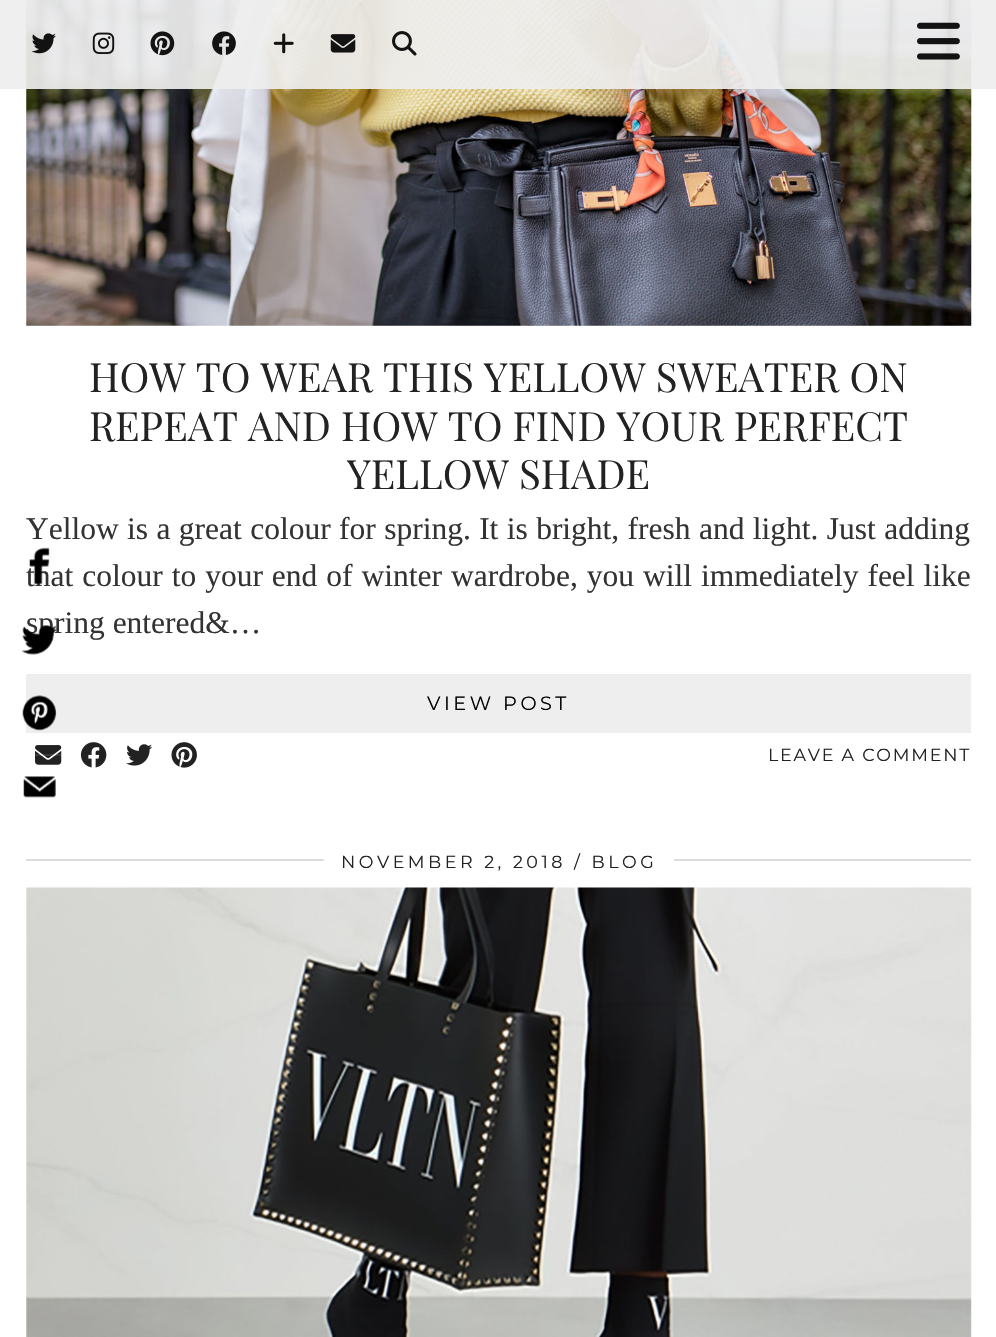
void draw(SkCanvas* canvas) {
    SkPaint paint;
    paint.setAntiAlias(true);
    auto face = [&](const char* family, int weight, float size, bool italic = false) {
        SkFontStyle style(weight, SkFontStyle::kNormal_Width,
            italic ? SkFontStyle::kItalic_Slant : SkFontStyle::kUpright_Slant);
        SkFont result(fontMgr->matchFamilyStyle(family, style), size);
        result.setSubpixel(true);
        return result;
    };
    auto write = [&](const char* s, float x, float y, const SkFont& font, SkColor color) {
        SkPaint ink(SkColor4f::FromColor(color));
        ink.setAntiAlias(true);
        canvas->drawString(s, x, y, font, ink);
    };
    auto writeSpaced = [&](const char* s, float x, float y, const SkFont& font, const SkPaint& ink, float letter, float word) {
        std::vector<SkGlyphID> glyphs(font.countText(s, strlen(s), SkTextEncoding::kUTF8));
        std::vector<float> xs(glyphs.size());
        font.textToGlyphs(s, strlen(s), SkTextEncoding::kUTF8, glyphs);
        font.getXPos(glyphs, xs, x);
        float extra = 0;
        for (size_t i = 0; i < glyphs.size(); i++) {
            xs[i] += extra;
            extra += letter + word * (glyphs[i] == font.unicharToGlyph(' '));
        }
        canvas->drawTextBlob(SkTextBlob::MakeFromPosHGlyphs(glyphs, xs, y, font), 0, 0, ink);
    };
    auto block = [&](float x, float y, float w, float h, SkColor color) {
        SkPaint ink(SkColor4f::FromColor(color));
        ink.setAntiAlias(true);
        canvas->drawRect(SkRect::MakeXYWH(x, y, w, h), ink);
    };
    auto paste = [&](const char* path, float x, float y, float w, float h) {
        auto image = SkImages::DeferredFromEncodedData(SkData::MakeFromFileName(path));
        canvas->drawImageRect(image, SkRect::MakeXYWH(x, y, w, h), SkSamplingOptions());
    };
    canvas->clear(SK_ColorWHITE);
    paste("pic9.png", 26, 0, 946, 326);
    block(0, 0, 996, 89, SkColorSetARGB(235, 238, 238, 238));
    paste("pic1.png", 31, 33, 25, 21);
    paste("pic2.png", 92, 32, 23, 22);
    paste("pic3.png", 150, 31, 25, 25);
    paste("pic4.png", 212, 31, 24, 24);
    paste("pic5.png", 273, 33, 21, 21);
    paste("pic6.png", 330, 34, 26, 19);
    paste("pic7.png", 392, 31, 25, 25);
    paste("pic8.png", 917, 22, 43, 38);
    auto kFont1 = face("Playfair Display", 400, 40.25f);
    write("HOW TO WEAR THIS YELLOW SWEATER ON", 89, 392, kFont1, SkColorSetRGB(34, 34, 34));
    write("REPEAT AND HOW TO FIND YOUR PERFECT", 89, 441, kFont1, SkColorSetRGB(34, 34, 34));
    write("YELLOW SHADE", 347, 489, kFont1, SkColorSetRGB(34, 34, 34));
    auto kFont2 = face("Liberation Serif", 400, 31.5f);
    paint.setColor(SkColorSetRGB(51, 51, 51));
    writeSpaced("Yellow is a great colour for spring. It is bright, fresh and light. Just adding", 26, 539, kFont2, paint, 0, 0.5f);
    writeSpaced("that colour to your end of winter wardrobe, you will immediately feel like", 26, 586, kFont2, paint, 0, 1.1f);
    write("spring entered&…", 26, 633, kFont2, SkColorSetRGB(51, 51, 51));
    block(26, 674, 945, 59, SkColorSetRGB(238, 238, 238));
    auto kFont3 = face("Montserrat", 100, 19.25f);
    paint.setColor(SK_ColorBLACK);
    writeSpaced("VIEW POST", 427, 710, kFont3, paint, 3.5f, 0);
    paste("pic10.png", 35, 745, 27, 20);
    paste("pic11.png", 80, 742, 27, 26);
    paste("pic12.png", 126, 744, 27, 22);
    paste("pic13.png", 171, 742, 26, 26);
    auto kFont4 = face("Montserrat", 100, 17.5f);
    paint.setColor(SkColorSetRGB(34, 34, 34));
    writeSpaced("LEAVE A COMMENT", 768, 761, kFont4, paint, 1.75f, 0);
    block(26, 859, 945, 2, SkColorSetRGB(221, 221, 221));
    block(324, 859, 350, 2, SK_ColorWHITE);
    writeSpaced("NOVEMBER 2, 2018 / BLOG", 341, 868, kFont4, paint, 3.5f, 0);
    paste("pic14.png", 26, 887, 946, 450);
    paste("pic15.png", 29, 547, 21, 38);
    paste("pic16.png", 21, 624, 36, 31);
    block(35, 754, 27, 2, SkColorSetARGB(26, 255, 255, 255));
    paste("pic17.png", 22, 695, 35, 36);
    paste("pic18.png", 23, 776, 33, 22);
}
